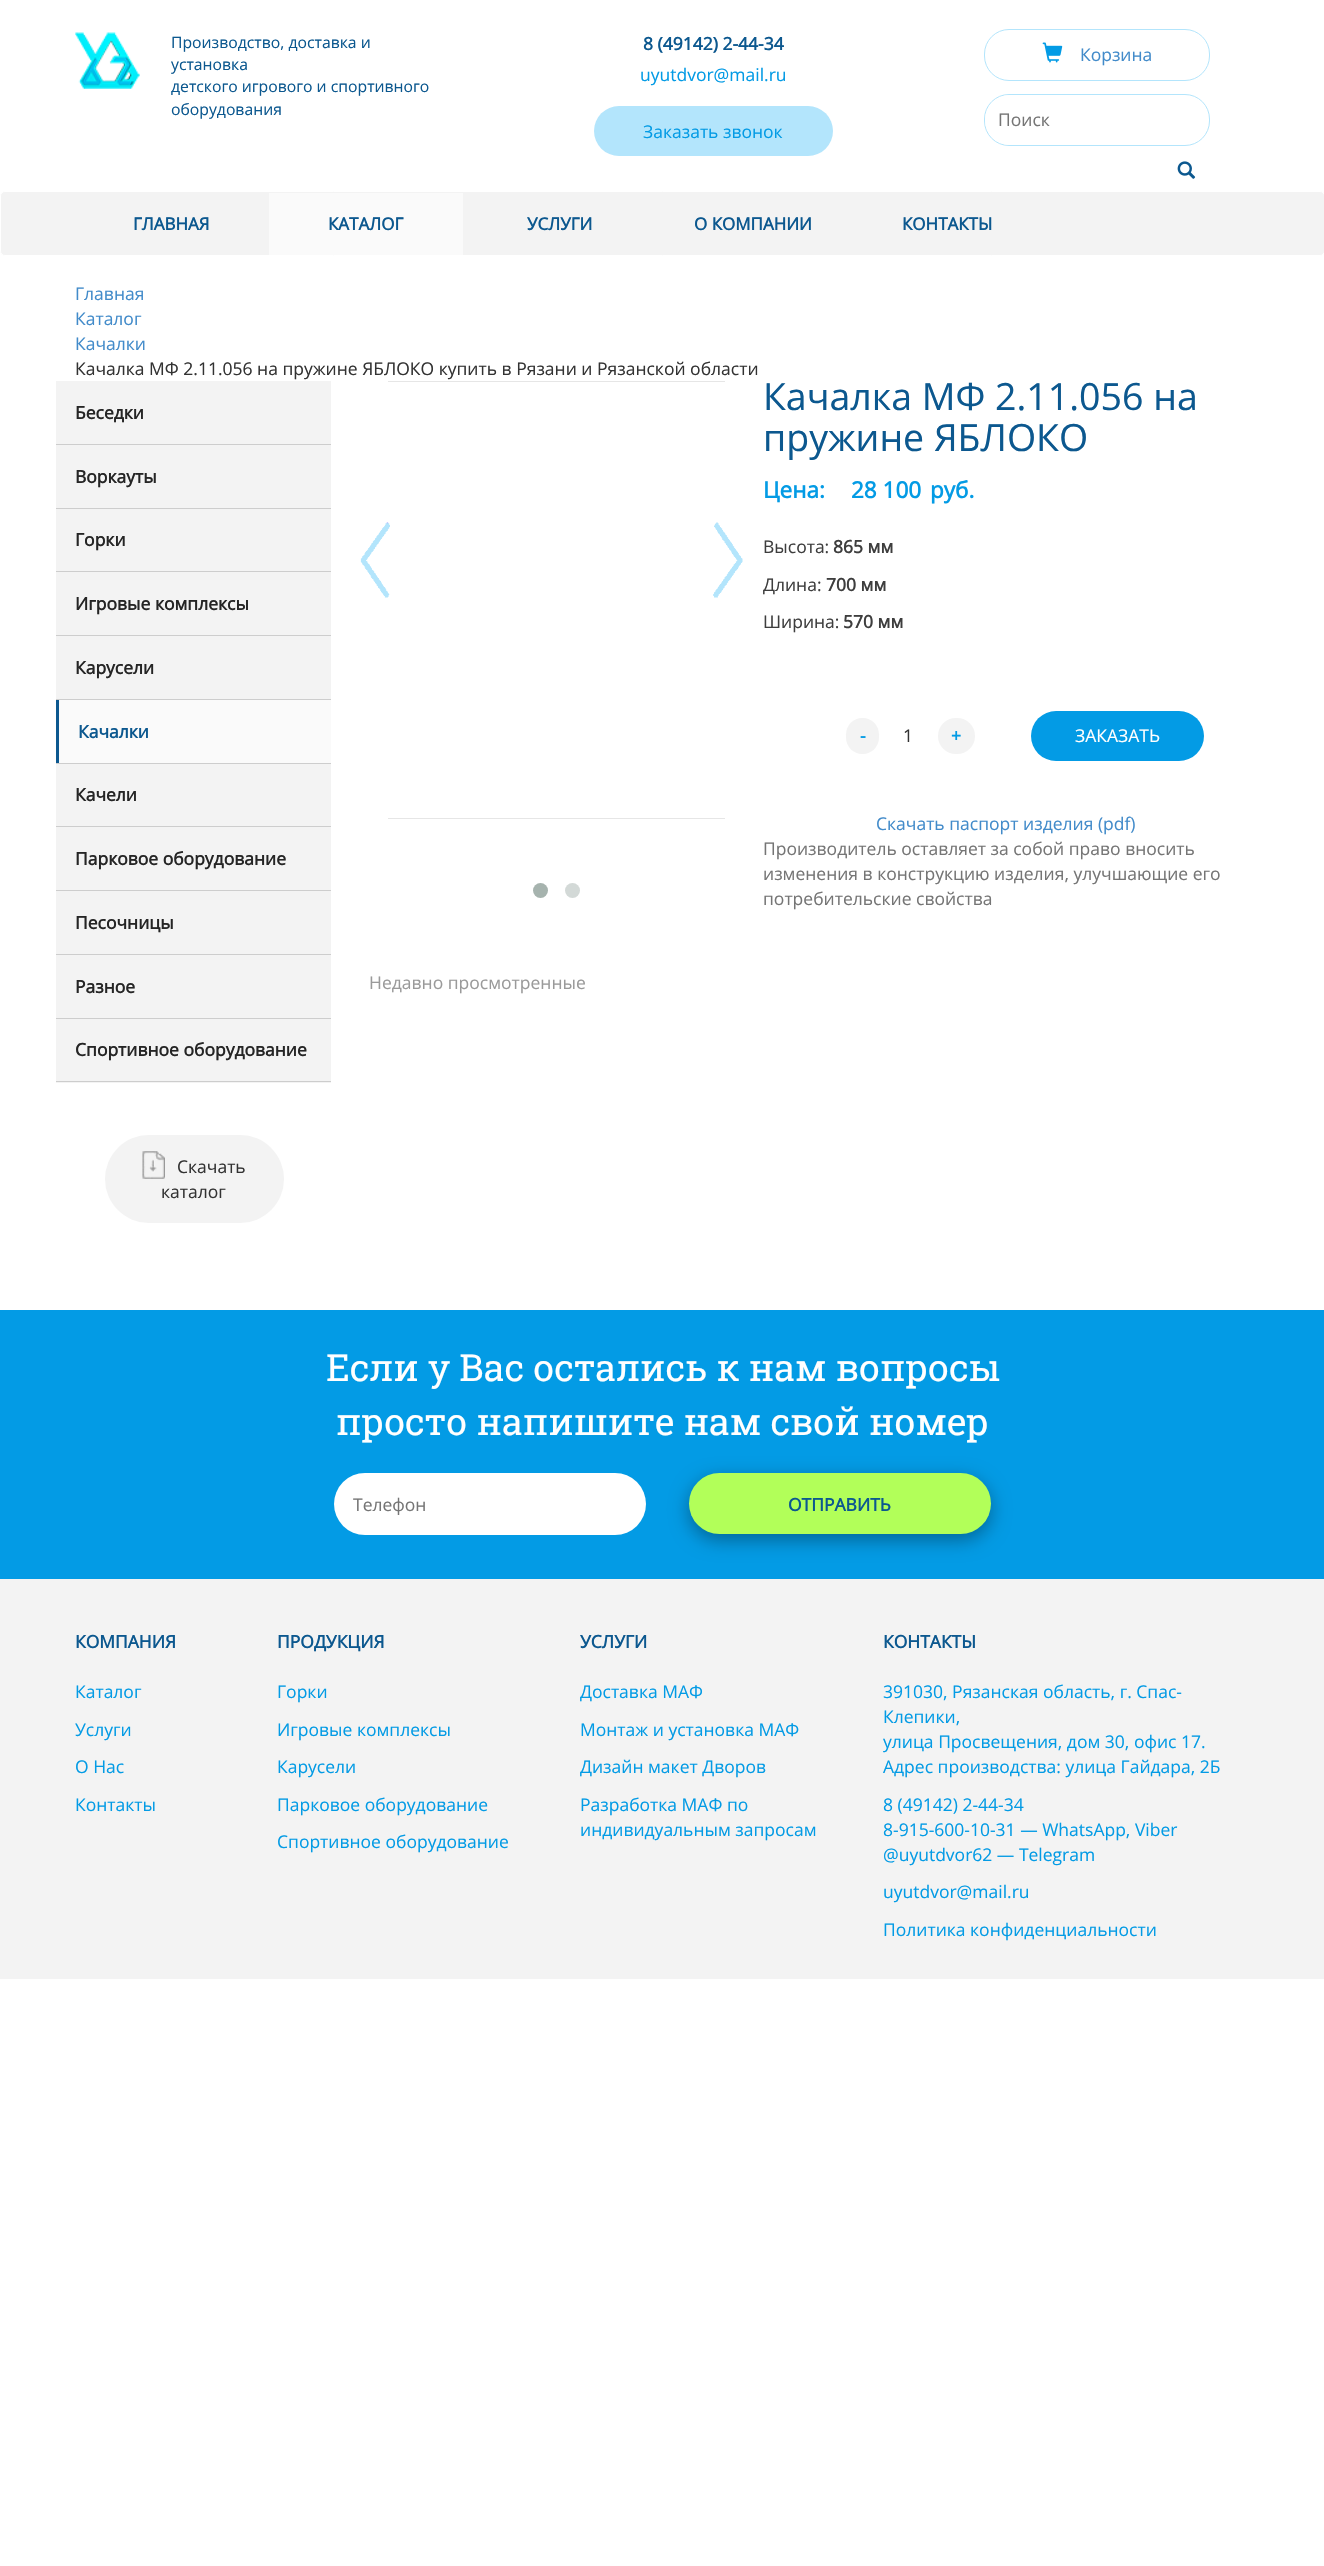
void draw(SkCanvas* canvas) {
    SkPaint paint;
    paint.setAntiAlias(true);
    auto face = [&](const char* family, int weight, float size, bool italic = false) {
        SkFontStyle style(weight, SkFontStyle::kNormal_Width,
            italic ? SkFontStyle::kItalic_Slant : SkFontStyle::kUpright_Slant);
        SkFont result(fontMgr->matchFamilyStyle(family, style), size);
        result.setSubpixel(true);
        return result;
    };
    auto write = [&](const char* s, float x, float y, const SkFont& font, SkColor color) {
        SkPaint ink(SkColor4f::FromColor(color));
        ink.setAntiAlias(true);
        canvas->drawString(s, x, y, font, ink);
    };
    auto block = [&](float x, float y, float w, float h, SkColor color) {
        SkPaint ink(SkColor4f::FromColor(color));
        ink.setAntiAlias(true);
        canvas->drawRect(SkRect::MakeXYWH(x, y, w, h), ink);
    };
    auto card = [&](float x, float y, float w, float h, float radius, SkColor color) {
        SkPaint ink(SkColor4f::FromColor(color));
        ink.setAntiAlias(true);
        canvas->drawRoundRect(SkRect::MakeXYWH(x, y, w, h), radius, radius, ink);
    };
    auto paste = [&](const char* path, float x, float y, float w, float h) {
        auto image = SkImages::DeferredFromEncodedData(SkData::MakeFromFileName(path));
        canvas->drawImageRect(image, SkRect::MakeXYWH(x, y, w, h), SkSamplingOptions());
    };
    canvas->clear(SK_ColorWHITE);
    paste("pic1.png", 75, 32, 65, 57);
    auto kFont1 = face("Open Sans", 400, 15.75f);
    write("Производство, доставка и", 171, 48, kFont1, SkColorSetRGB(12, 88, 143));
    write("установка", 171, 70, kFont1, SkColorSetRGB(12, 88, 143));
    write("детского игрового и спортивного", 171, 92, kFont1, SkColorSetRGB(12, 88, 143));
    write("оборудования", 171, 115, kFont1, SkColorSetRGB(12, 88, 143));
    auto kFont2 = face("Open Sans", 700, 17.5f);
    write("8 (49142) 2-44-34", 643, 50, kFont2, SkColorSetRGB(12, 88, 143));
    auto kFont3 = face("Open Sans", 400, 17.5f);
    write("uyutdvor@mail.ru", 640, 81, kFont3, SkColorSetRGB(3, 155, 229));
    card(594, 106, 239, 50, 25, SkColorSetRGB(179, 229, 252));
    write("Заказать звонок", 643, 138, kFont3, SkColorSetRGB(3, 155, 229));
    paint.setStyle(SkPaint::kStroke_Style);
    paint.setStrokeWidth(1);
    paint.setColor(SkColorSetRGB(179, 229, 252));
    canvas->drawRoundRect(SkRect::MakeXYWH(984.5f, 29.5f, 225, 51), 24.5f, 24.5f, paint);
    paste("pic2.png", 1042, 42, 21, 21);
    write("Корзина", 1080, 61, kFont3, SkColorSetRGB(66, 139, 202));
    canvas->drawRoundRect(SkRect::MakeXYWH(984.5f, 94.5f, 225, 51), 24.5f, 24.5f, paint);
    card(985, 95, 190, 50, 25, SK_ColorWHITE);
    write("Поиск", 998, 126, kFont3, SkColorSetRGB(117, 117, 117));
    paste("pic3.png", 1177, 161, 19, 18);
    paint.setStyle(SkPaint::kFill_Style);
    paint.setColor(SkColorSetRGB(243, 243, 243));
    canvas->drawRoundRect(SkRect::MakeXYWH(0.5f, 191.5f, 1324, 64), 4.5f, 4.5f, paint);
    paint.setStyle(SkPaint::kStroke_Style);
    paint.setColor(SK_ColorWHITE);
    canvas->drawRoundRect(SkRect::MakeXYWH(0.5f, 191.5f, 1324, 64), 4.5f, 4.5f, paint);
    auto kFont4 = face("Open Sans", 700, 17);
    write("ГЛАВНАЯ", 133, 230, kFont4, SkColorSetRGB(12, 88, 143));
    block(269, 193, 194, 62, SkColorSetRGB(250, 250, 250));
    write("КАТАЛОГ", 328, 230, kFont4, SkColorSetRGB(12, 88, 143));
    write("УСЛУГИ", 527, 230, kFont4, SkColorSetRGB(12, 88, 143));
    write("О КОМПАНИИ", 694, 230, kFont4, SkColorSetRGB(12, 88, 143));
    write("КОНТАКТЫ", 902, 230, kFont4, SkColorSetRGB(12, 88, 143));
    write("Главная", 75, 300, kFont3, SkColorSetRGB(66, 139, 202));
    write("Каталог", 75, 325, kFont3, SkColorSetRGB(66, 139, 202));
    write("Качалки", 75, 350, kFont3, SkColorSetRGB(66, 139, 202));
    write("Качалка МФ 2.11.056 на пружине ЯБЛОКО купить в Рязани и Рязанской области", 75, 375, kFont3, SkColorSetRGB(51, 51, 51));
    block(56, 381, 275, 63, SkColorSetRGB(243, 243, 243));
    block(56, 444, 275, 1, SkColorSetRGB(205, 205, 205));
    write("Беседки", 75, 419, kFont2, SkColorSetRGB(37, 37, 37));
    block(56, 445, 275, 63, SkColorSetRGB(243, 243, 243));
    block(56, 508, 275, 1, SkColorSetRGB(205, 205, 205));
    write("Воркауты", 75, 483, kFont2, SkColorSetRGB(37, 37, 37));
    block(56, 509, 275, 126, SkColorSetRGB(243, 243, 243));
    block(56, 571, 275, 1, SkColorSetRGB(205, 205, 205));
    write("Горки", 75, 546, kFont2, SkColorSetRGB(37, 37, 37));
    block(56, 635, 275, 1, SkColorSetRGB(205, 205, 205));
    write("Игровые комплексы", 75, 610, kFont2, SkColorSetRGB(37, 37, 37));
    block(56, 636, 275, 63, SkColorSetRGB(243, 243, 243));
    block(56, 699, 275, 1, SkColorSetRGB(205, 205, 205));
    write("Карусели", 75, 674, kFont2, SkColorSetRGB(37, 37, 37));
    block(59, 700, 272, 63, SkColorSetRGB(250, 250, 250));
    block(56, 763, 275, 1, SkColorSetRGB(205, 205, 205));
    block(56, 700, 3, 63, SkColorSetRGB(12, 88, 143));
    write("Качалки", 78, 738, kFont2, SkColorSetRGB(12, 88, 143));
    block(56, 764, 275, 126, SkColorSetRGB(243, 243, 243));
    block(56, 826, 275, 1, SkColorSetRGB(205, 205, 205));
    write("Качели", 75, 801, kFont2, SkColorSetRGB(37, 37, 37));
    block(56, 890, 275, 1, SkColorSetRGB(205, 205, 205));
    write("Парковое оборудование", 75, 865, kFont2, SkColorSetRGB(37, 37, 37));
    block(56, 891, 275, 63, SkColorSetRGB(243, 243, 243));
    block(56, 954, 275, 1, SkColorSetRGB(205, 205, 205));
    write("Песочницы", 75, 929, kFont2, SkColorSetRGB(37, 37, 37));
    block(56, 955, 275, 63, SkColorSetRGB(243, 243, 243));
    block(56, 1018, 275, 1, SkColorSetRGB(205, 205, 205));
    write("Разное", 75, 993, kFont2, SkColorSetRGB(37, 37, 37));
    block(56, 1019, 275, 64, SkColorSetRGB(243, 243, 243));
    block(56, 1081, 275, 1, SkColorSetRGB(205, 205, 205));
    write("Спортивное оборудование", 75, 1056, kFont2, SkColorSetRGB(37, 37, 37));
    card(105, 1135, 179, 88, 44, SkColorSetRGB(243, 243, 243));
    paste("pic4.png", 142, 1151, 23, 28);
    write("Скачать", 177, 1173, kFont3, SkColorSetRGB(51, 51, 51));
    write("каталог", 161, 1198, kFont3, SkColorSetRGB(51, 51, 51));
    block(388, 381, 337, 1, SkColorSetRGB(230, 230, 230));
    block(388, 818, 337, 1, SkColorSetRGB(230, 230, 230));
    paste("pic5.png", 360, 522, 30, 76);
    paste("pic6.png", 713, 522, 30, 76);
    paint.setStyle(SkPaint::kFill_Style);
    paint.setColor(SkColorSetRGB(166, 179, 174));
    canvas->drawCircle(540.5f, 890.5f, 7.5f, paint);
    paint.setColor(SkColorSetRGB(211, 217, 215));
    canvas->drawCircle(572.5f, 890.5f, 7.5f, paint);
    auto kFont5 = face("Open Sans", 400, 37.5f);
    write("Качалка МФ 2.11.056 на", 763, 410, kFont5, SkColorSetRGB(12, 88, 143));
    write("пружине ЯБЛОКО", 763, 451, kFont5, SkColorSetRGB(12, 88, 143));
    auto kFont6 = face("Open Sans", 700, 22.5f);
    write("Цена:", 763, 498, kFont6, SkColorSetRGB(3, 155, 229));
    write("28 100", 851, 498, kFont6, SkColorSetRGB(3, 155, 229));
    write("руб.", 930, 498, kFont6, SkColorSetRGB(3, 155, 229));
    write("Высота:", 763, 553, kFont3, SkColorSetRGB(62, 62, 62));
    write("865 мм", 833, 553, kFont2, SkColorSetRGB(62, 62, 62));
    write("Длина:", 763, 591, kFont3, SkColorSetRGB(62, 62, 62));
    write("700 мм", 826, 591, kFont2, SkColorSetRGB(62, 62, 62));
    write("Ширина:", 763, 628, kFont3, SkColorSetRGB(62, 62, 62));
    write("570 мм", 843, 628, kFont2, SkColorSetRGB(62, 62, 62));
    card(846, 718, 33, 36, 16.5f, SkColorSetRGB(243, 243, 243));
    write("-", 860, 742, kFont2, SkColorSetRGB(3, 155, 229));
    write("1", 903, 742, kFont3, SkColorSetRGB(51, 51, 51));
    card(938, 718, 37, 36, 18, SkColorSetRGB(243, 243, 243));
    write("+", 951, 742, kFont2, SkColorSetRGB(3, 155, 229));
    card(1031, 711, 173, 50, 25, SkColorSetRGB(3, 155, 229));
    write("ЗАКАЗАТЬ", 1075, 742, kFont3, SK_ColorWHITE);
    write("Скачать паспорт изделия (pdf)", 876, 830, kFont3, SkColorSetRGB(66, 139, 202));
    write("Производитель оставляет за собой право вносить", 763, 855, kFont3, SkColorSetRGB(117, 117, 117));
    write("изменения в конструкцию изделия, улучшающие его", 763, 880, kFont3, SkColorSetRGB(117, 117, 117));
    write("потребительские свойства", 763, 905, kFont3, SkColorSetRGB(117, 117, 117));
    write("Недавно просмотренные", 369, 989, kFont3, SkColorSetRGB(154, 154, 154));
    block(0, 1310, 1324, 269, SkColorSetRGB(3, 155, 229));
    auto kFont7 = face("Roboto Slab", 400, 37.4f);
    write("Если у Вас остались к нам вопросы", 326, 1381, kFont7, SK_ColorWHITE);
    write("просто напишите нам свой номер", 336, 1435, kFont7, SK_ColorWHITE);
    card(334, 1473, 312, 62, 31, SK_ColorWHITE);
    canvas->save();
    canvas->clipRect(SkRect::MakeXYWH(353, 1491, 275, 24));
    write("Телефон", 353, 1511, kFont3, SkColorSetRGB(117, 117, 117));
    canvas->restore();
    paint.setColor(SkColorSetARGB(89, 0, 0, 0));
    paint.setMaskFilter(SkMaskFilter::MakeBlur(kNormal_SkBlurStyle, 9.5f));
    canvas->drawRoundRect(SkRect::MakeXYWH(689, 1479, 302, 61), 30.5f, 30.5f, paint);
    paint.setMaskFilter(nullptr);
    card(689, 1473, 302, 61, 30.5f, SkColorSetRGB(178, 255, 89));
    write("ОТПРАВИТЬ", 788, 1511, kFont2, SkColorSetRGB(12, 88, 143));
    block(0, 1579, 1324, 400, SkColorSetRGB(243, 243, 243));
    write("КОМПАНИЯ", 75, 1648, kFont2, SkColorSetRGB(12, 88, 143));
    write("Каталог", 75, 1698, kFont3, SkColorSetRGB(3, 155, 229));
    write("Услуги", 75, 1736, kFont3, SkColorSetRGB(3, 155, 229));
    write("О Нас", 75, 1773, kFont3, SkColorSetRGB(3, 155, 229));
    write("Контакты", 75, 1811, kFont3, SkColorSetRGB(3, 155, 229));
    write("ПРОДУКЦИЯ", 277, 1648, kFont2, SkColorSetRGB(12, 88, 143));
    write("Горки", 277, 1698, kFont3, SkColorSetRGB(3, 155, 229));
    write("Игровые комплексы", 277, 1736, kFont3, SkColorSetRGB(3, 155, 229));
    write("Карусели", 277, 1773, kFont3, SkColorSetRGB(3, 155, 229));
    write("Парковое оборудование", 277, 1811, kFont3, SkColorSetRGB(3, 155, 229));
    write("Спортивное оборудование", 277, 1848, kFont3, SkColorSetRGB(3, 155, 229));
    write("УСЛУГИ", 580, 1648, kFont2, SkColorSetRGB(12, 88, 143));
    write("Доставка МАФ", 580, 1698, kFont3, SkColorSetRGB(3, 155, 229));
    write("Монтаж и установка МАФ", 580, 1736, kFont3, SkColorSetRGB(3, 155, 229));
    write("Дизайн макет Дворов", 580, 1773, kFont3, SkColorSetRGB(3, 155, 229));
    write("Разработка МАФ по", 580, 1811, kFont3, SkColorSetRGB(3, 155, 229));
    write("индивидуальным запросам", 580, 1836, kFont3, SkColorSetRGB(3, 155, 229));
    write("КОНТАКТЫ", 883, 1648, kFont2, SkColorSetRGB(12, 88, 143));
    write("391030, Рязанская область, г. Спас-", 883, 1698, kFont3, SkColorSetRGB(3, 155, 229));
    write("Клепики,", 883, 1723, kFont3, SkColorSetRGB(3, 155, 229));
    write("улица Просвещения, дом 30, офис 17.", 883, 1748, kFont3, SkColorSetRGB(3, 155, 229));
    write("Адрес производства: улица Гайдара, 2Б", 883, 1773, kFont3, SkColorSetRGB(3, 155, 229));
    write("8 (49142) 2-44-34", 883, 1811, kFont3, SkColorSetRGB(3, 155, 229));
    write("8-915-600-10-31 — WhatsApp, Viber", 883, 1836, kFont3, SkColorSetRGB(3, 155, 229));
    write("@uyutdvor62 — Telegram", 883, 1861, kFont3, SkColorSetRGB(3, 155, 229));
    write("uyutdvor@mail.ru", 883, 1898, kFont3, SkColorSetRGB(3, 155, 229));
    write("Политика конфиденциальности", 883, 1936, kFont3, SkColorSetRGB(3, 155, 229));
}
